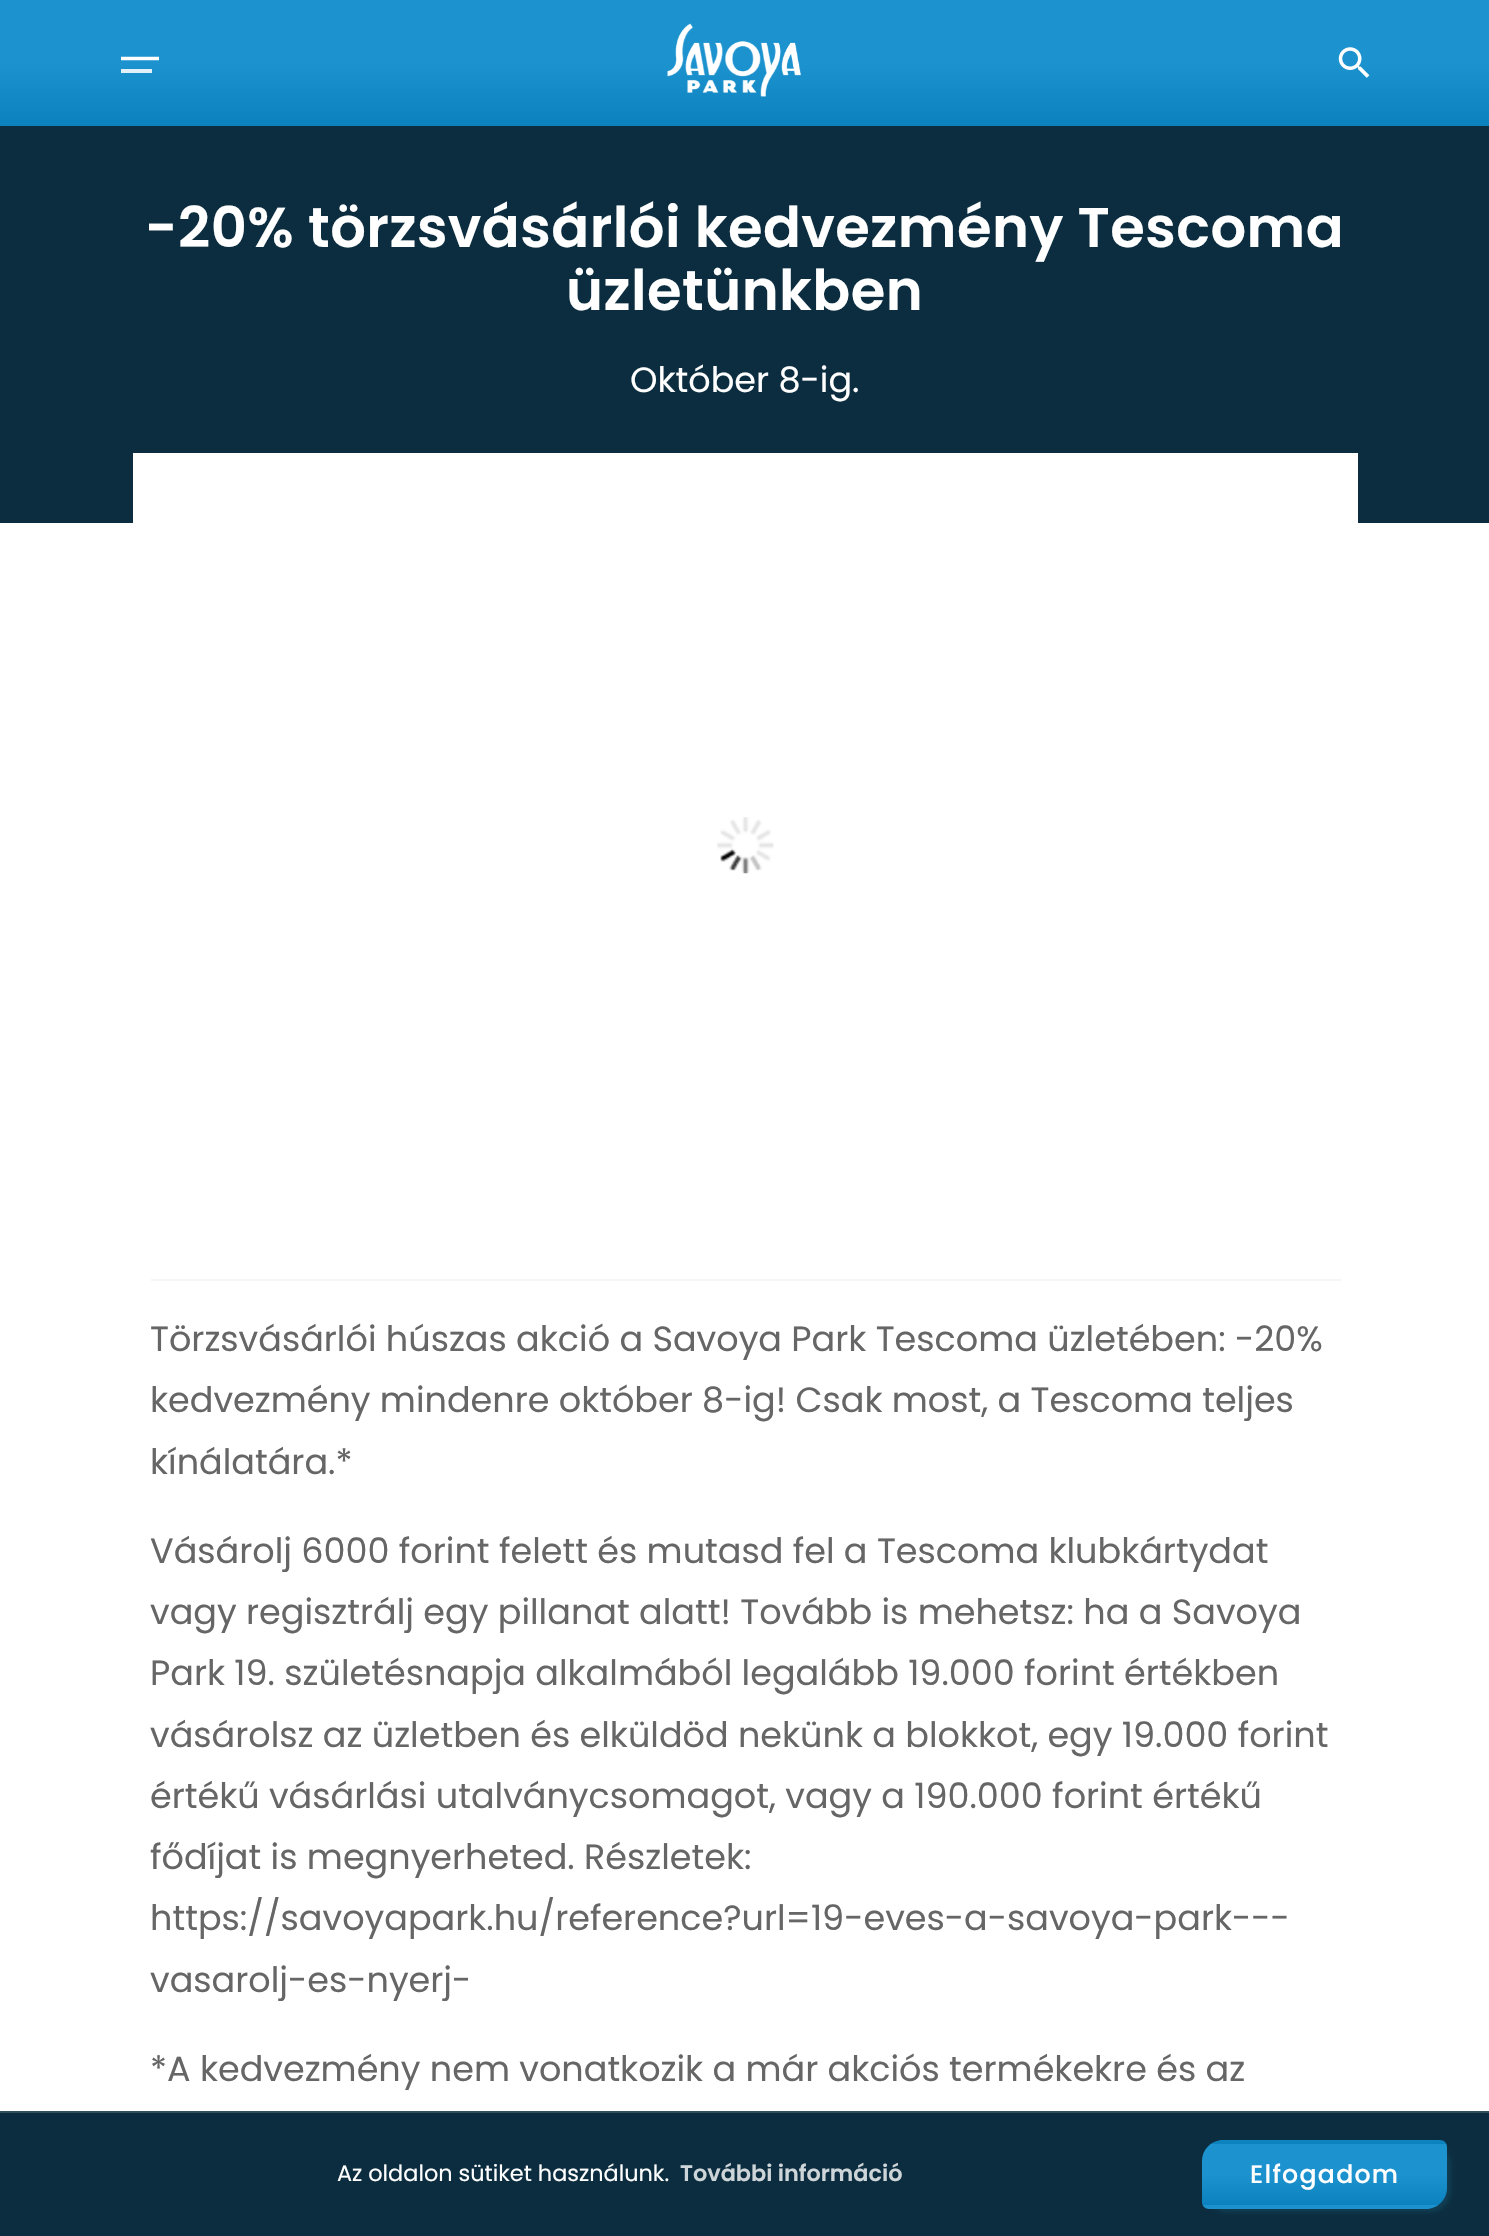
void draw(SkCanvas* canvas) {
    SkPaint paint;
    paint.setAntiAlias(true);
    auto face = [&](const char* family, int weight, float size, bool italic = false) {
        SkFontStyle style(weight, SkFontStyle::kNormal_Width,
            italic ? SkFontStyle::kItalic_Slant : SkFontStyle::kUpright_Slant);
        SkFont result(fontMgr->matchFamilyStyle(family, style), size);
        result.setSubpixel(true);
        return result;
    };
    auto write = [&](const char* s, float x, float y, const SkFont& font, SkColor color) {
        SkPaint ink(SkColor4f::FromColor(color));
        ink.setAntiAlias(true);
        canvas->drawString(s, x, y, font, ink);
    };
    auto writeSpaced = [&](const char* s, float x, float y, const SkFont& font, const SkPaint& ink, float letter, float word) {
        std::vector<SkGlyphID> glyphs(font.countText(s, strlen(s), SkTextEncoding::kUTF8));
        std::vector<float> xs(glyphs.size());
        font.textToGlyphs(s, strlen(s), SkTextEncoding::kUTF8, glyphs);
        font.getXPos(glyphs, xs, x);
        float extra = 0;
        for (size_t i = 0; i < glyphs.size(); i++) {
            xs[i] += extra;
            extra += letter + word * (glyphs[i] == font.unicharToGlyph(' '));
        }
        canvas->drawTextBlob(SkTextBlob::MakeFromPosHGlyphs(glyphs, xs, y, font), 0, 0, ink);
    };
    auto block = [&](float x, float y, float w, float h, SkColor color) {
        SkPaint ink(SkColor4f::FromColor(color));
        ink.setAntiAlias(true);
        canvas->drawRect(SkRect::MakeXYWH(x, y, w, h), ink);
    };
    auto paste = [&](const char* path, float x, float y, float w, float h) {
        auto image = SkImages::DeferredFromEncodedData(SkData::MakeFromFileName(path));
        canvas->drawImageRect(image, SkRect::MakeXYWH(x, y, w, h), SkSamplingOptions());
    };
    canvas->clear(SK_ColorWHITE);
    {
        const SkColor colors[] = {SkColorSetRGB(28, 146, 207), SkColorSetRGB(11, 129, 190)};
        const float stops[] = {0.5f, 1};
        const SkPoint ends[] = {{745, 0}, {745, 126}};
        paint.setShader(SkGradientShader::MakeLinear(ends, colors, stops, 2, SkTileMode::kClamp));
        paint.setAlpha(255);
    }
    canvas->drawRect(SkRect::MakeXYWH(0, 0, 1489, 126), paint);
    paint.setStyle(SkPaint::kStroke_Style);
    paint.setStrokeWidth(3.5f);
    paint.setShader(nullptr);
    paint.setColor(SK_ColorWHITE);
    canvas->drawPath(SkPathBuilder().moveTo(121, 58.5f).lineTo(159, 58.5f).detach(), paint);
    block(121, 69, 31, 4, SkColorSetRGB(226, 241, 249));
    paste("pic1.png", 667, 23, 134, 74);
    paste("pic2.png", 1338, 47, 32, 31);
    block(0, 126, 1489, 397, SkColorSetRGB(11, 45, 63));
    auto kFont1 = face("Poppins", 600, 56);
    paint.setStyle(SkPaint::kFill_Style);
    writeSpaced("-20% törzsvásárlói kedvezmény Tescoma", 145, 247, kFont1, paint, 0.45f, 0);
    writeSpaced("üzletünkben", 566, 310, kFont1, paint, 0.45f, 0);
    auto kFont2 = face("Poppins", 400, 35);
    write("Október 8-ig.", 630, 392, kFont2, SK_ColorWHITE);
    block(133, 453, 1225, 70, SK_ColorWHITE);
    paste("pic3.png", 717, 817, 57, 57);
    block(151, 1279, 1190, 2, SkColorSetRGB(245, 245, 245));
    write("Törzsvásárlói húszas akció a Savoya Park Tescoma üzletében: -20%", 150, 1351, kFont2, SkColorSetRGB(102, 102, 102));
    write("kedvezmény mindenre október 8-ig! Csak most, a Tescoma teljes", 150, 1412, kFont2, SkColorSetRGB(102, 102, 102));
    write("kínálatára.*", 150, 1474, kFont2, SkColorSetRGB(102, 102, 102));
    write("Vásárolj 6000 forint felett és mutasd fel a Tescoma klubkártydat", 150, 1563, kFont2, SkColorSetRGB(102, 102, 102));
    write("vagy regisztrálj egy pillanat alatt! Tovább is mehetsz: ha a Savoya", 150, 1624, kFont2, SkColorSetRGB(102, 102, 102));
    write("Park 19. születésnapja alkalmából legalább 19.000 forint értékben", 150, 1685, kFont2, SkColorSetRGB(102, 102, 102));
    write("vásárolsz az üzletben és elküldöd nekünk a blokkot, egy 19.000 forint", 150, 1747, kFont2, SkColorSetRGB(102, 102, 102));
    write("értékű vásárlási utalványcsomagot, vagy a 190.000 forint értékű", 150, 1808, kFont2, SkColorSetRGB(102, 102, 102));
    write("fődíjat is megnyerheted. Részletek:", 150, 1869, kFont2, SkColorSetRGB(102, 102, 102));
    write("https://savoyapark.hu/reference?url=19-eves-a-savoya-park---", 150, 1930, kFont2, SkColorSetRGB(102, 102, 102));
    write("vasarolj-es-nyerj-", 150, 1992, kFont2, SkColorSetRGB(102, 102, 102));
    write("*A kedvezmény nem vonatkozik a már akciós termékekre és az", 150, 2081, kFont2, SkColorSetRGB(102, 102, 102));
    block(0, 2113, 1489, 123, SkColorSetRGB(11, 45, 63));
    block(0, 2111, 1489, 2, SkColorSetRGB(50, 79, 94));
    auto kFont3 = face("Poppins", 400, 22.4f);
    write("Az oldalon sütiket használunk.", 337, 2181, kFont3, SK_ColorWHITE);
    auto kFont4 = face("Poppins", 600, 22.4f);
    write("További információ", 680, 2181, kFont4, SkColorSetRGB(206, 213, 217));
    paint.setColor(SkColorSetARGB(82, 29, 95, 129));
    paint.setMaskFilter(SkMaskFilter::MakeBlur(kNormal_SkBlurStyle, 2));
    canvas->drawRoundRect(SkRect::MakeXYWH(1206, 2144, 245, 68), 21, 21, paint);
    paint.setMaskFilter(nullptr);
    canvas->save();
    canvas->clipPath(SkPathBuilder().moveTo(1223, 2140).lineTo(1440, 2140).cubicTo(1444, 2140, 1447, 2143, 1447, 2147).lineTo(1447, 2188).cubicTo(1447, 2199.5f, 1437.5f, 2209, 1426, 2209).lineTo(1209, 2209).cubicTo(1205, 2209, 1202, 2206, 1202, 2202).lineTo(1202, 2161).cubicTo(1202, 2149.5f, 1211.5f, 2140, 1223, 2140).close().detach(), true);
    {
        const SkColor colors[] = {SkColorSetRGB(28, 146, 207), SkColorSetRGB(11, 129, 190)};
        const float stops[] = {0.5f, 1};
        const SkPoint ends[] = {{1325, 2083}, {1325, 2144}};
        paint.setShader(SkGradientShader::MakeLinear(ends, colors, stops, 2, SkTileMode::kClamp));
        paint.setAlpha(255);
    }
    canvas->drawRect(SkRect::MakeXYWH(1202, 2140, 245, 4), paint);
    {
        const SkColor colors[] = {SkColorSetRGB(28, 146, 207), SkColorSetRGB(11, 129, 190)};
        const float stops[] = {0.5f, 1};
        const SkPoint ends[] = {{1325, 2144}, {1325, 2205}};
        paint.setShader(SkGradientShader::MakeLinear(ends, colors, stops, 2, SkTileMode::kClamp));
        paint.setAlpha(255);
    }
    canvas->drawRect(SkRect::MakeXYWH(1202, 2144, 245, 61), paint);
    {
        const SkColor colors[] = {SkColorSetRGB(28, 146, 207), SkColorSetRGB(11, 129, 190)};
        const float stops[] = {0.5f, 1};
        const SkPoint ends[] = {{1325, 2205}, {1325, 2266}};
        paint.setShader(SkGradientShader::MakeLinear(ends, colors, stops, 2, SkTileMode::kClamp));
        paint.setAlpha(255);
    }
    canvas->drawRect(SkRect::MakeXYWH(1202, 2205, 245, 4), paint);
    canvas->restore();
    auto kFont5 = face("Poppins", 500, 25.25f);
    paint.setShader(nullptr);
    paint.setColor(SK_ColorWHITE);
    writeSpaced("Elfogadom", 1250, 2183, kFont5, paint, 1.25f, 0);
}
